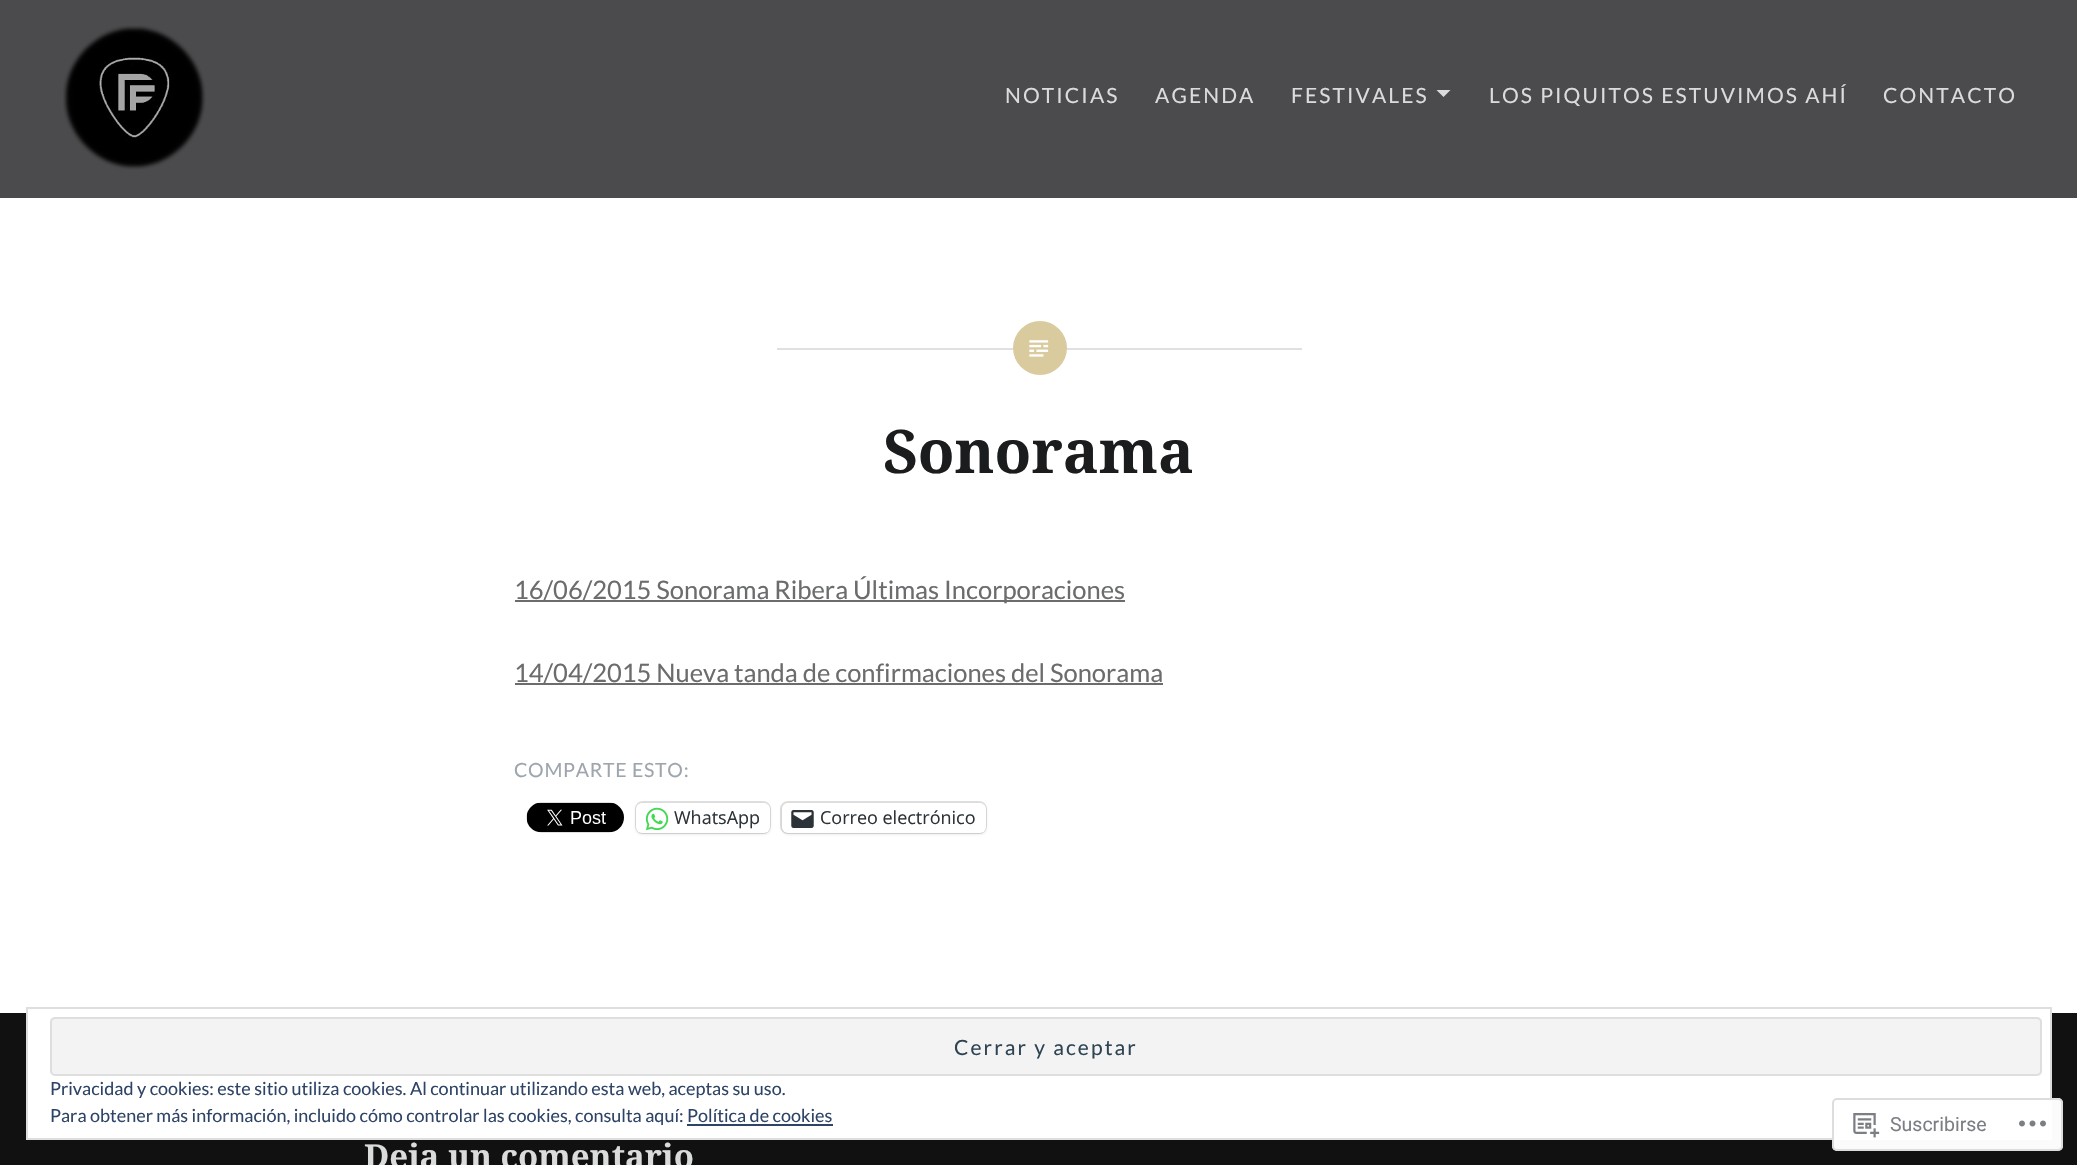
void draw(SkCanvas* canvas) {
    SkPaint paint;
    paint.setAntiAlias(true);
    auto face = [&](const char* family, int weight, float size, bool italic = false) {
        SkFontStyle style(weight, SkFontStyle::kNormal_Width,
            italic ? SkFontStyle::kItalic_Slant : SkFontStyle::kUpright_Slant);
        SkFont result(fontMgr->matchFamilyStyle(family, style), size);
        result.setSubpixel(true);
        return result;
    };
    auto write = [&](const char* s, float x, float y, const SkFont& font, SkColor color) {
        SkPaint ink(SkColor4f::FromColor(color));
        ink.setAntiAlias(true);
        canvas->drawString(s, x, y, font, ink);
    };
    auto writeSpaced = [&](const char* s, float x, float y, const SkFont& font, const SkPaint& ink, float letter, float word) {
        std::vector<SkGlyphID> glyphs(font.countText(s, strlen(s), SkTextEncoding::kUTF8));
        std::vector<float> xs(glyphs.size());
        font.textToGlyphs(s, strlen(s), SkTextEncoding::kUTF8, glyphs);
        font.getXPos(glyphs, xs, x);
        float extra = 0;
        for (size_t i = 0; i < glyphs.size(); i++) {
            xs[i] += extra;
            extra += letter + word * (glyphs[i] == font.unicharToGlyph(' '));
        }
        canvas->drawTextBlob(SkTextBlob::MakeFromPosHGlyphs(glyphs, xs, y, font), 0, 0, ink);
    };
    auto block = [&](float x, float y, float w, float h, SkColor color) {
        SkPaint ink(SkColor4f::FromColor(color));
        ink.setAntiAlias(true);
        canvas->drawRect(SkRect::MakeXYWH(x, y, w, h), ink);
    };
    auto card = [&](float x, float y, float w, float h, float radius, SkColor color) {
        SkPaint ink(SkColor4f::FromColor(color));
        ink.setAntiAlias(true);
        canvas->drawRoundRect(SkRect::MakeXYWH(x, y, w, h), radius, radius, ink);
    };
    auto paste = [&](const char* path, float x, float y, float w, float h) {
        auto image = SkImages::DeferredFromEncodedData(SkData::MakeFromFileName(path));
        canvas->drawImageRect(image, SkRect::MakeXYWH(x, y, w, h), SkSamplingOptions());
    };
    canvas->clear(SK_ColorWHITE);
    block(0, 0, 2077, 198, SkColorSetRGB(75, 75, 77));
    paste("pic1.png", 63, 25, 143, 145);
    auto kFont1 = face("Lato", 400, 21);
    paint.setColor(SkColorSetRGB(218, 220, 220));
    writeSpaced("NOTICIAS", 1005, 103, kFont1, paint, 2.1f, 0);
    writeSpaced("AGENDA", 1155, 103, kFont1, paint, 2.1f, 0);
    writeSpaced("FESTIVALES", 1291, 103, kFont1, paint, 2.1f, 0);
    canvas->drawPath(SkPathBuilder().moveTo(1436.5f, 90).lineTo(1450.5f, 90).lineTo(1443.5f, 97).close().detach(), paint);
    writeSpaced("LOS PIQUITOS ESTUVIMOS AHÍ", 1489, 103, kFont1, paint, 2.1f, 0);
    writeSpaced("CONTACTO", 1883, 103, kFont1, paint, 2.1f, 0);
    block(777, 348, 525, 2, SkColorSetRGB(224, 224, 224));
    paint.setColor(SkColorSetRGB(217, 203, 158));
    canvas->drawCircle(1040, 348, 27, paint);
    paste("pic2.png", 1029, 340, 20, 17);
    auto kFont2 = face("Noto Serif", 700, 60);
    write("Sonorama", 883, 473, kFont2, SkColorSetRGB(26, 28, 30));
    block(515, 600, 610, 2, SkColorSetRGB(106, 108, 110));
    auto kFont3 = face("Lato", 400, 25.5f);
    write("16/06/2015 Sonorama Ribera Últimas Incorporaciones", 514, 599, kFont3, SkColorSetRGB(106, 108, 110));
    block(515, 683, 648, 2, SkColorSetRGB(106, 108, 110));
    write("14/04/2015 Nueva tanda de confirmaciones del Sonorama", 514, 682, kFont3, SkColorSetRGB(106, 108, 110));
    auto kFont4 = face("Lato", 400, 19.5f);
    paint.setColor(SkColorSetRGB(157, 165, 173));
    writeSpaced("COMPARTE ESTO:", 514, 777, kFont4, paint, 0.75f, 0);
    paste("pic3.png", 526, 802, 98, 31);
    paint.setStyle(SkPaint::kStroke_Style);
    paint.setStrokeWidth(2);
    paint.setColor(SkColorSetRGB(224, 224, 224));
    canvas->drawRoundRect(SkRect::MakeXYWH(636, 802, 134, 31), 7, 7, paint);
    paint.setStyle(SkPaint::kFill_Style);
    paint.setColor(SkColorSetARGB(31, 0, 0, 0));
    paint.setMaskFilter(SkMaskFilter::MakeBlur(kNormal_SkBlurStyle, 1.5f));
    canvas->drawRoundRect(SkRect::MakeXYWH(636, 804, 134, 30), 6, 6, paint);
    paint.setMaskFilter(nullptr);
    card(636, 803, 134, 30, 6, SK_ColorWHITE);
    paste("pic4.png", 645, 807, 24, 24);
    auto kFont5 = face("Open Sans", 400, 18);
    write("WhatsApp", 674, 824, kFont5, SkColorSetRGB(44, 51, 56));
    paint.setStyle(SkPaint::kStroke_Style);
    paint.setColor(SkColorSetRGB(224, 224, 224));
    canvas->drawRoundRect(SkRect::MakeXYWH(781, 802, 205, 31), 7, 7, paint);
    paint.setStyle(SkPaint::kFill_Style);
    paint.setColor(SkColorSetARGB(31, 0, 0, 0));
    paint.setMaskFilter(SkMaskFilter::MakeBlur(kNormal_SkBlurStyle, 1.5f));
    canvas->drawRoundRect(SkRect::MakeXYWH(782, 804, 204, 30), 6, 6, paint);
    paint.setMaskFilter(nullptr);
    card(782, 803, 204, 30, 6, SK_ColorWHITE);
    paste("pic5.png", 791, 810, 23, 18);
    write("Correo electrónico", 820, 824, kFont5, SkColorSetRGB(44, 51, 56));
    block(0, 1013, 2077, 152, SkColorSetRGB(17, 17, 18));
    auto kFont6 = face("Noto Serif", 700, 33);
    write("Deja un comentario", 364, 1168, kFont6, SkColorSetRGB(218, 220, 220));
    block(28, 1013, 2022, 125, SK_ColorWHITE);
    paint.setStyle(SkPaint::kStroke_Style);
    paint.setColor(SkColorSetRGB(222, 222, 222));
    canvas->drawRect(SkRect::MakeXYWH(27, 1008, 2024, 131), paint);
    paint.setStyle(SkPaint::kFill_Style);
    paint.setColor(SkColorSetRGB(243, 243, 243));
    canvas->drawRoundRect(SkRect::MakeXYWH(51, 1018, 1990, 57), 4, 4, paint);
    paint.setStyle(SkPaint::kStroke_Style);
    paint.setColor(SkColorSetRGB(222, 222, 222));
    canvas->drawRoundRect(SkRect::MakeXYWH(51, 1018, 1990, 57), 4, 4, paint);
    paint.setStyle(SkPaint::kFill_Style);
    paint.setColor(SkColorSetRGB(46, 68, 83));
    writeSpaced("Cerrar y aceptar", 954, 1055, kFont1, paint, 2.1f, 0);
    auto kFont7 = face("Lato", 400, 18);
    write("Privacidad y cookies: este sitio utiliza cookies. Al continuar utilizando esta web, aceptas su uso.", 50, 1095, kFont7, SkColorSetRGB(46, 68, 103));
    write("Para obtener más información, incluido cómo controlar las cookies, consulta aquí: Política de cookies", 50, 1122, kFont7, SkColorSetRGB(46, 68, 103));
    block(687, 1124, 146, 2, SkColorSetRGB(46, 68, 103));
    card(1832, 1098, 231, 53, 5, SkColorSetARGB(250, 255, 255, 255));
    paint.setStyle(SkPaint::kStroke_Style);
    paint.setColor(SkColorSetARGB(250, 220, 220, 222));
    canvas->drawRoundRect(SkRect::MakeXYWH(1833, 1099, 229, 51), 4, 4, paint);
    paste("pic6.png", 1853, 1113, 27, 25);
    auto kFont8 = face("Roboto", 400, 19.5f);
    write("Suscribirse", 1890, 1131, kFont8, SkColorSetRGB(123, 127, 133));
    paste("pic7.png", 2019, 1120, 27, 7);
}
